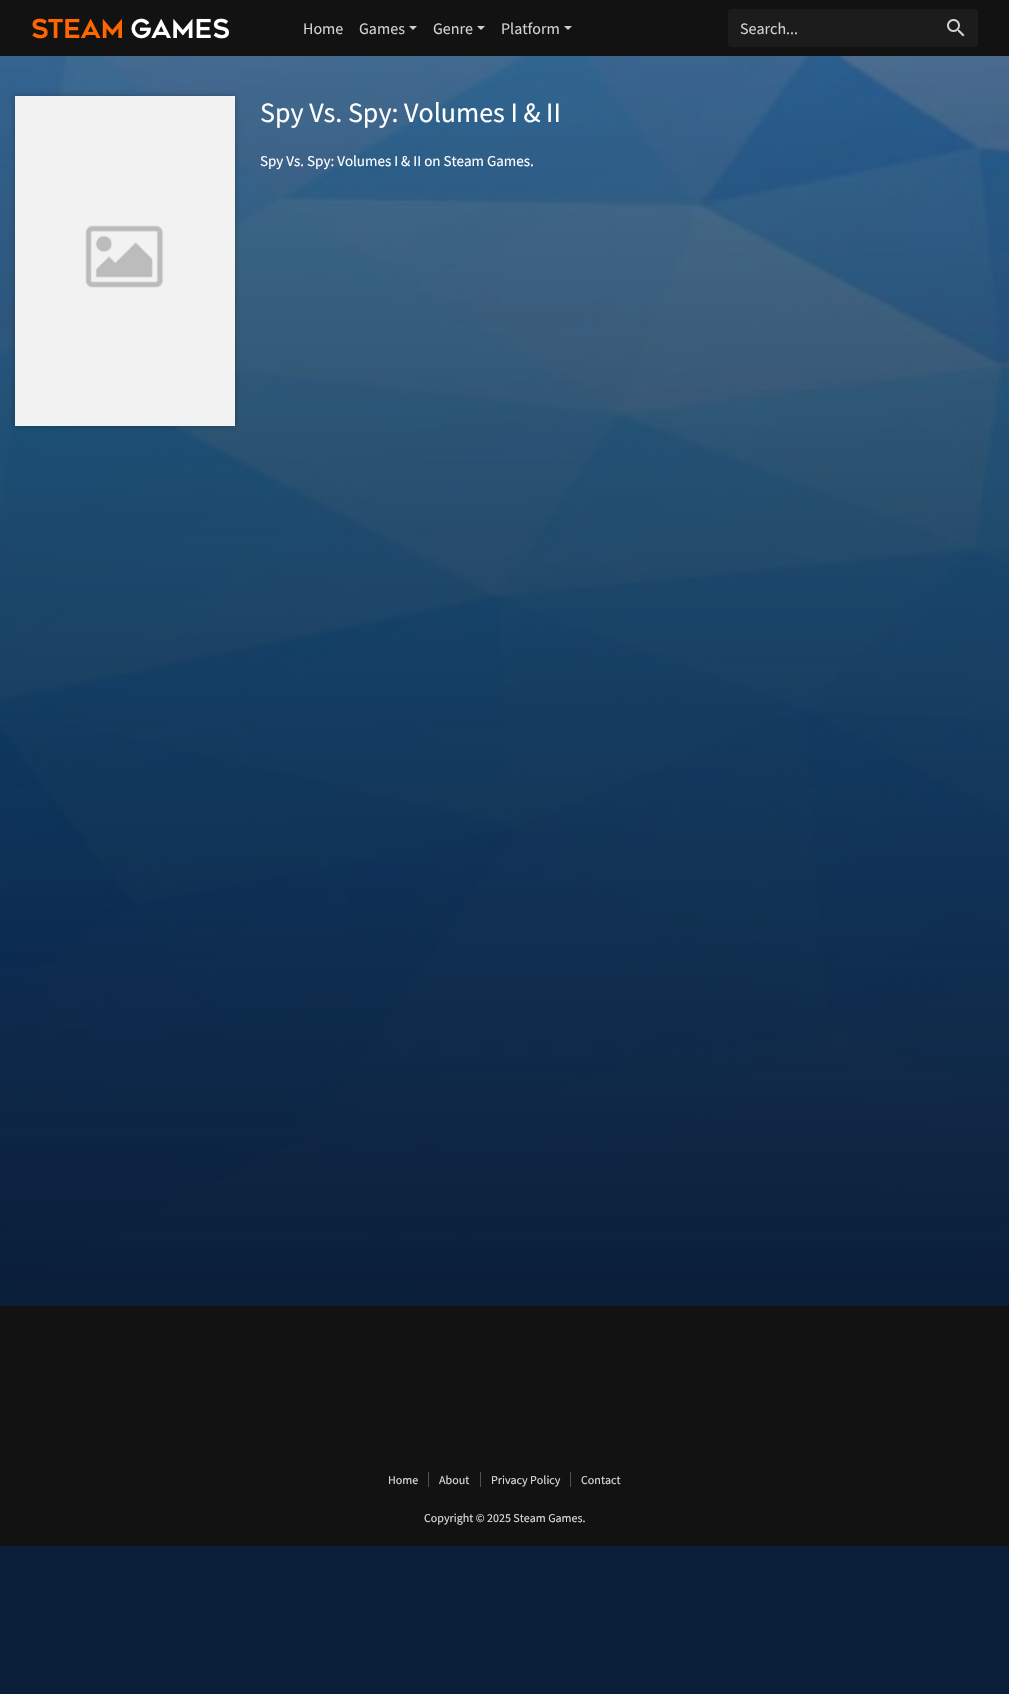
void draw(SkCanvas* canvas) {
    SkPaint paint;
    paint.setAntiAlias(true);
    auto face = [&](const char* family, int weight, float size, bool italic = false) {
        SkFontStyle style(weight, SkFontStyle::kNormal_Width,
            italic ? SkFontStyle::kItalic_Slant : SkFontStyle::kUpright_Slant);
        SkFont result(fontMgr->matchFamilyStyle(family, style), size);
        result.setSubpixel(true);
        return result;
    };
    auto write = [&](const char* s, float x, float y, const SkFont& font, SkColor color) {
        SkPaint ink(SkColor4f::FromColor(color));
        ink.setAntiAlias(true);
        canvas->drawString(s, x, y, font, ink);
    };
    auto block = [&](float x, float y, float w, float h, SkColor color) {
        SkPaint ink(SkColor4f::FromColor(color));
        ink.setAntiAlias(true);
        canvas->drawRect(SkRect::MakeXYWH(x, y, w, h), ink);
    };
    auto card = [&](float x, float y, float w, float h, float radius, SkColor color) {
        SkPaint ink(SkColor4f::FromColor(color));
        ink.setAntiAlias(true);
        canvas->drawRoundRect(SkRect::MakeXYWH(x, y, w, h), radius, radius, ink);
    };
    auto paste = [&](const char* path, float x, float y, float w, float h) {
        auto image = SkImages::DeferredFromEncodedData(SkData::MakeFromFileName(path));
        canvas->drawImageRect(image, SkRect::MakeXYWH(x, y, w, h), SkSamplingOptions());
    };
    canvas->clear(SkColorSetRGB(10, 30, 57));
    block(0, 0, 1009, 56, SkColorSetRGB(18, 18, 18));
    paste("pic1.png", 32, 18, 197, 21);
    auto kFont1 = face("Source Sans Pro", 400, 16);
    write("Home", 303, 34, kFont1, SkColorSetRGB(208, 208, 208));
    write("Games", 359, 34, kFont1, SkColorSetRGB(208, 208, 208));
    paint.setColor(SkColorSetRGB(208, 208, 208));
    canvas->drawPath(SkPathBuilder().moveTo(409, 26).lineTo(417, 26).lineTo(413, 30).close().detach(), paint);
    write("Genre", 433, 34, kFont1, SkColorSetRGB(208, 208, 208));
    canvas->drawPath(SkPathBuilder().moveTo(477, 26).lineTo(485, 26).lineTo(481, 30).close().detach(), paint);
    write("Platform", 501, 34, kFont1, SkColorSetRGB(208, 208, 208));
    canvas->drawPath(SkPathBuilder().moveTo(564, 26).lineTo(572, 26).lineTo(568, 30).close().detach(), paint);
    card(728, 9, 250, 38, 4, SkColorSetRGB(28, 28, 28));
    write("Search...", 740, 34, kFont1, SkColorSetRGB(208, 208, 208));
    paste("pic2.png", 947, 19, 18, 18);
    paste("pic3.png", 0, 56, 1009, 1250);
    paint.setColor(SkColorSetARGB(69, 0, 0, 0));
    paint.setMaskFilter(SkMaskFilter::MakeBlur(kNormal_SkBlurStyle, 3));
    canvas->drawRect(SkRect::MakeXYWH(15, 96, 220, 330), paint);
    paint.setMaskFilter(nullptr);
    paste("pic4.png", 15, 96, 220, 330);
    auto kFont2 = face("Source Sans Pro", 400, 28);
    write("Spy Vs. Spy: Volumes I & II", 260, 122, kFont2, SK_ColorWHITE);
    auto kFont3 = face("Source Sans Pro", 400, 15);
    write("Spy Vs. Spy: Volumes I & II on Steam Games.", 260, 166, kFont3, SK_ColorWHITE);
    block(0, 1306, 1009, 240, SkColorSetRGB(18, 18, 18));
    auto kFont4 = face("Source Sans Pro", 400, 12);
    write("Home", 388, 1484, kFont4, SkColorSetRGB(221, 221, 221));
    block(428, 1472, 1, 15, SkColorSetRGB(77, 81, 95));
    write("About", 439, 1484, kFont4, SkColorSetRGB(221, 221, 221));
    block(480, 1472, 1, 15, SkColorSetRGB(77, 81, 95));
    write("Privacy Policy", 491, 1484, kFont4, SkColorSetRGB(221, 221, 221));
    block(570, 1472, 1, 15, SkColorSetRGB(77, 81, 95));
    write("Contact", 581, 1484, kFont4, SkColorSetRGB(221, 221, 221));
    write("Copyright © 2025 Steam Games.", 424, 1522, kFont4, SkColorSetRGB(221, 221, 221));
}
